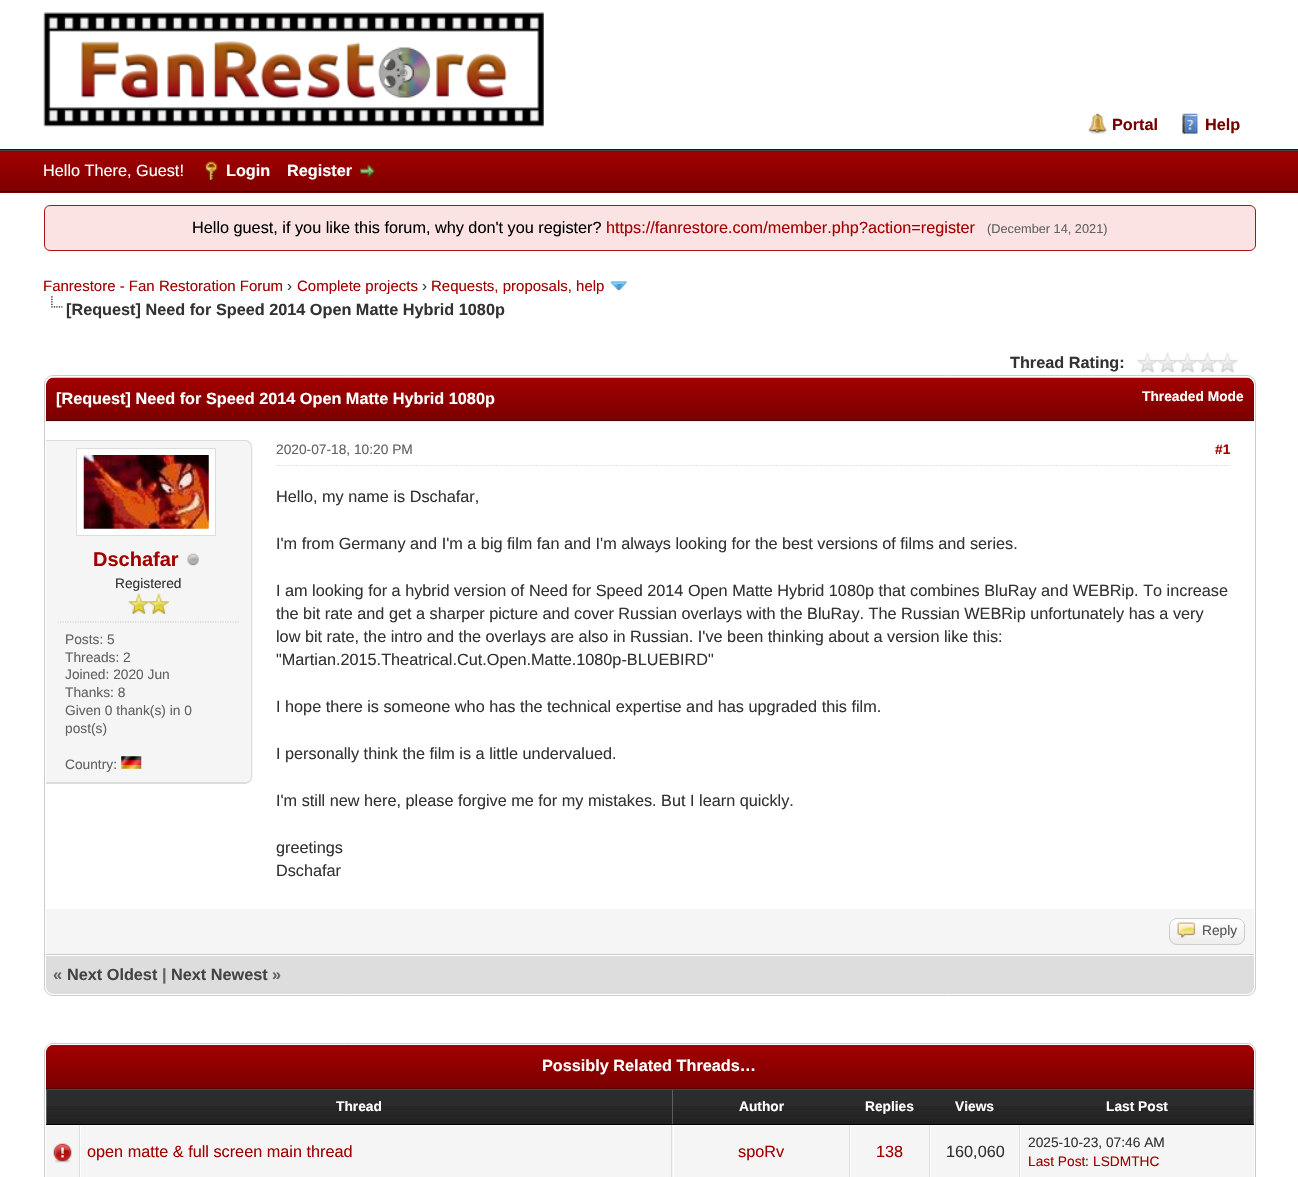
void draw(SkCanvas* canvas) {
    SkPaint paint;
    paint.setAntiAlias(true);
    auto face = [&](const char* family, int weight, float size, bool italic = false) {
        SkFontStyle style(weight, SkFontStyle::kNormal_Width,
            italic ? SkFontStyle::kItalic_Slant : SkFontStyle::kUpright_Slant);
        SkFont result(fontMgr->matchFamilyStyle(family, style), size);
        result.setSubpixel(true);
        return result;
    };
    auto write = [&](const char* s, float x, float y, const SkFont& font, SkColor color) {
        SkPaint ink(SkColor4f::FromColor(color));
        ink.setAntiAlias(true);
        canvas->drawString(s, x, y, font, ink);
    };
    auto block = [&](float x, float y, float w, float h, SkColor color) {
        SkPaint ink(SkColor4f::FromColor(color));
        ink.setAntiAlias(true);
        canvas->drawRect(SkRect::MakeXYWH(x, y, w, h), ink);
    };
    auto paste = [&](const char* path, float x, float y, float w, float h) {
        auto image = SkImages::DeferredFromEncodedData(SkData::MakeFromFileName(path));
        canvas->drawImageRect(image, SkRect::MakeXYWH(x, y, w, h), SkSamplingOptions());
    };
    canvas->clear(SK_ColorWHITE);
    block(0, 149, 1298, 1, SkColorSetRGB(85, 0, 0));
    paste("pic1.png", 43, 12, 501, 115);
    paste("pic2.png", 1088, 113, 19, 21);
    auto kFont1 = face("Liberation Sans", 700, 16.25f);
    write("Portal", 1112, 130, kFont1, SkColorSetRGB(117, 0, 0));
    paste("pic3.png", 1182, 113, 16, 21);
    write("Help", 1205, 130, kFont1, SkColorSetRGB(117, 0, 0));
    block(0, 151, 1298, 42, SkColorSetRGB(117, 0, 0));
    paste("pic4.png", 0, 151, 1298, 40);
    block(0, 150, 1298, 1, SkColorSetRGB(68, 68, 68));
    block(0, 191, 1298, 1, SK_ColorBLACK);
    auto kFont2 = face("Liberation Sans", 400, 16.25f);
    write("Hello There, Guest!", 43, 176, kFont2, SK_ColorWHITE);
    paste("pic5.png", 205, 161, 13, 19);
    write("Login", 226, 176, kFont1, SK_ColorWHITE);
    write("Register", 287, 176, kFont1, SK_ColorWHITE);
    paste("pic6.png", 359, 164, 17, 14);
    paint.setColor(SkColorSetRGB(251, 227, 228));
    canvas->drawRoundRect(SkRect::MakeXYWH(44.5f, 205.5f, 1211, 45), 5.5f, 5.5f, paint);
    paint.setStyle(SkPaint::kStroke_Style);
    paint.setStrokeWidth(1);
    paint.setColor(SkColorSetRGB(165, 22, 26));
    canvas->drawRoundRect(SkRect::MakeXYWH(44.5f, 205.5f, 1211, 45), 5.5f, 5.5f, paint);
    write("Hello guest, if you like this forum, why don't you register?", 192, 233, kFont2, SK_ColorBLACK);
    write("https://fanrestore.com/member.php?action=register", 606, 233, kFont2, SkColorSetRGB(162, 0, 0));
    auto kFont3 = face("Liberation Sans", 400, 12.75f);
    write("(December 14, 2021)", 987, 233, kFont3, SkColorSetRGB(99, 97, 97));
    auto kFont4 = face("Liberation Sans", 400, 15);
    write("Fanrestore - Fan Restoration Forum", 43, 291, kFont4, SkColorSetRGB(162, 0, 0));
    write("›", 287, 291, kFont4, SkColorSetRGB(51, 51, 51));
    write("Complete projects", 297, 291, kFont4, SkColorSetRGB(162, 0, 0));
    write("›", 422, 291, kFont4, SkColorSetRGB(51, 51, 51));
    write("Requests, proposals, help", 431, 291, kFont4, SkColorSetRGB(162, 0, 0));
    paste("pic7.png", 610, 281, 18, 10);
    paste("pic8.png", 51, 296, 12, 12);
    write("[Request] Need for Speed 2014 Open Matte Hybrid 1080p", 66, 315, kFont1, SkColorSetRGB(51, 51, 51));
    write("Thread Rating:", 1010, 368, kFont1, SkColorSetRGB(51, 51, 51));
    paste("pic9.png", 1137, 352, 101, 21);
    paint.setColor(SkColorSetRGB(204, 204, 204));
    canvas->drawRoundRect(SkRect::MakeXYWH(44.5f, 375.5f, 1211, 620), 8.5f, 8.5f, paint);
    paint.setStyle(SkPaint::kFill_Style);
    paint.setColor(SkColorSetRGB(117, 0, 0));
    canvas->drawPath(SkPathBuilder().moveTo(54, 378).lineTo(1246, 378).cubicTo(1250.5f, 378, 1254, 381.5f, 1254, 386).lineTo(1254, 421).lineTo(46, 421).lineTo(46, 386).cubicTo(46, 381.5f, 49.5f, 378, 54, 378).close().detach(), paint);
    paste("pic10.png", 46, 377, 1208, 45);
    block(46, 420, 1208, 1, SkColorSetRGB(85, 0, 0));
    write("[Request] Need for Speed 2014 Open Matte Hybrid 1080p", 56, 404, kFont1, SK_ColorWHITE);
    auto kFont5 = face("Liberation Sans", 700, 13.75f);
    write("Threaded Mode", 1142, 401, kFont5, SK_ColorWHITE);
    paint.setColor(SkColorSetRGB(245, 245, 245));
    canvas->drawPath(SkPathBuilder().moveTo(46, 440).lineTo(245, 440).cubicTo(249.5f, 440, 253, 443.5f, 253, 448).lineTo(253, 776).cubicTo(253, 780.5f, 249.5f, 784, 245, 784).lineTo(46, 784).close().detach(), paint);
    paint.setColor(SkColorSetRGB(221, 221, 221));
    canvas->drawPath(SkPathBuilder(SkPathFillType::kEvenOdd).moveTo(46, 440).lineTo(245, 440).cubicTo(249, 440, 252, 443, 252, 448).lineTo(252, 776).cubicTo(252, 780, 249, 784, 245, 784).lineTo(46, 784).close().moveTo(46, 441).lineTo(245, 441).cubicTo(248, 441, 251, 444, 251, 448).lineTo(251, 776).cubicTo(251, 780, 248, 782, 245, 782).lineTo(46, 782).close().detach(), paint);
    paint.setColor(SK_ColorWHITE);
    canvas->drawRect(SkRect::MakeXYWH(76.5f, 448.5f, 139, 87), paint);
    paint.setStyle(SkPaint::kStroke_Style);
    paint.setColor(SkColorSetRGB(221, 221, 221));
    canvas->drawRect(SkRect::MakeXYWH(76.5f, 448.5f, 139, 87), paint);
    paste("pic11.png", 83, 455, 126, 74);
    auto kFont6 = face("Liberation Sans", 700, 20);
    write("Dschafar", 93, 566, kFont6, SkColorSetRGB(162, 0, 0));
    paste("pic12.png", 187, 553, 12, 13);
    auto kFont7 = face("Liberation Sans", 400, 13.75f);
    write("Registered", 115, 588, kFont7, SkColorSetRGB(51, 51, 51));
    paste("pic13.png", 128, 593, 21, 21);
    paste("pic14.png", 148, 593, 21, 21);
    paint.setStrokeWidth(1.2f);
    paint.setColor(SkColorSetRGB(204, 204, 204));
    paint.setPathEffect(SkDashPathEffect::Make({{1.25f, 1.25f}}, 0));
    canvas->drawPath(SkPathBuilder().moveTo(57.5f, 622).lineTo(239, 622).detach(), paint);
    paint.setPathEffect(nullptr);
    write("Posts: 5", 65, 644, kFont7, SkColorSetRGB(99, 97, 97));
    write("Threads: 2", 65, 662, kFont7, SkColorSetRGB(99, 97, 97));
    write("Joined: 2020 Jun", 65, 679, kFont7, SkColorSetRGB(99, 97, 97));
    write("Thanks: 8", 65, 697, kFont7, SkColorSetRGB(99, 97, 97));
    write("Given 0 thank(s) in 0", 65, 715, kFont7, SkColorSetRGB(99, 97, 97));
    write("post(s)", 65, 733, kFont7, SkColorSetRGB(99, 97, 97));
    write("Country:", 65, 769, kFont7, SkColorSetRGB(99, 97, 97));
    paste("pic15.png", 121, 756, 21, 13);
    paint.setColor(SkColorSetRGB(221, 221, 221));
    paint.setPathEffect(SkDashPathEffect::Make({{1.25f, 1.25f}}, 0));
    canvas->drawPath(SkPathBuilder().moveTo(276, 465.5f).lineTo(1230, 465.5f).detach(), paint);
    paint.setPathEffect(nullptr);
    write("2020-07-18, 10:20 PM", 276, 454, kFont7, SkColorSetRGB(99, 97, 97));
    write("#1", 1215, 454, kFont5, SkColorSetRGB(162, 0, 0));
    write("Hello, my name is Dschafar,", 276, 502, kFont2, SkColorSetRGB(51, 51, 51));
    write("I'm from Germany and I'm a big film fan and I'm always looking for the best versions of films and series.", 276, 549, kFont2, SkColorSetRGB(51, 51, 51));
    write("I am looking for a hybrid version of Need for Speed 2014 Open Matte Hybrid 1080p that combines BluRay and WEBRip. To increase", 276, 596, kFont2, SkColorSetRGB(51, 51, 51));
    write("the bit rate and get a sharper picture and cover Russian overlays with the BluRay. The Russian WEBRip unfortunately has a very", 276, 619, kFont2, SkColorSetRGB(51, 51, 51));
    write("low bit rate, the intro and the overlays are also in Russian. I've been thinking about a version like this:", 276, 642, kFont2, SkColorSetRGB(51, 51, 51));
    write("\"Martian.2015.Theatrical.Cut.Open.Matte.1080p-BLUEBIRD\"", 276, 665, kFont2, SkColorSetRGB(51, 51, 51));
    write("I hope there is someone who has the technical expertise and has upgraded this film.", 276, 712, kFont2, SkColorSetRGB(51, 51, 51));
    write("I personally think the film is a little undervalued.", 276, 759, kFont2, SkColorSetRGB(51, 51, 51));
    write("I'm still new here, please forgive me for my mistakes. But I learn quickly.", 276, 806, kFont2, SkColorSetRGB(51, 51, 51));
    write("greetings", 276, 853, kFont2, SkColorSetRGB(51, 51, 51));
    write("Dschafar", 276, 876, kFont2, SkColorSetRGB(51, 51, 51));
    block(46, 909, 1208, 45, SkColorSetRGB(245, 245, 245));
    block(46, 954, 1208, 1, SkColorSetRGB(204, 204, 204));
    paste("pic16.png", 1169, 918, 76, 27);
    paint.setStrokeWidth(1);
    paint.setColor(SkColorSetRGB(204, 204, 204));
    canvas->drawRoundRect(SkRect::MakeXYWH(1169.5f, 918.5f, 75, 26), 7.5f, 7.5f, paint);
    paste("pic17.png", 1177, 922, 19, 16);
    write("Reply", 1202, 935, kFont7, SkColorSetRGB(85, 85, 85));
    paint.setStyle(SkPaint::kFill_Style);
    paint.setColor(SkColorSetRGB(221, 221, 221));
    canvas->drawPath(SkPathBuilder().moveTo(46, 955).lineTo(1254, 955).lineTo(1254, 986).cubicTo(1254, 990.5f, 1250.5f, 994, 1246, 994).lineTo(54, 994).cubicTo(49.5f, 994, 46, 990.5f, 46, 986).close().detach(), paint);
    block(46, 955, 1208, 1, SK_ColorWHITE);
    write("«", 53, 980, kFont1, SkColorSetRGB(99, 97, 97));
    write("Next Oldest", 67, 980, kFont1, SkColorSetRGB(68, 68, 68));
    write("|", 162, 980, kFont1, SkColorSetRGB(99, 97, 97));
    write("Next Newest", 171, 980, kFont1, SkColorSetRGB(68, 68, 68));
    write("»", 272, 980, kFont1, SkColorSetRGB(99, 97, 97));
    paint.setStyle(SkPaint::kStroke_Style);
    paint.setColor(SkColorSetRGB(204, 204, 204));
    canvas->drawRoundRect(SkRect::MakeXYWH(44.5f, 1043.5f, 1211, 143), 8.5f, 8.5f, paint);
    paint.setStyle(SkPaint::kFill_Style);
    paint.setColor(SkColorSetRGB(117, 0, 0));
    canvas->drawPath(SkPathBuilder().moveTo(54, 1045).lineTo(1246, 1045).cubicTo(1250.5f, 1045, 1254, 1048.5f, 1254, 1053).lineTo(1254, 1089).lineTo(46, 1089).lineTo(46, 1053).cubicTo(46, 1048.5f, 49.5f, 1045, 54, 1045).close().detach(), paint);
    paste("pic18.png", 46, 1045, 1208, 43);
    block(46, 1088, 1208, 1, SkColorSetRGB(85, 0, 0));
    write("Possibly Related Threads…", 542, 1071, kFont1, SK_ColorWHITE);
    paste("pic19.png", 46, 1090, 627, 34);
    block(46, 1089, 1208, 1, SkColorSetRGB(68, 68, 68));
    block(46, 1124, 627, 1, SK_ColorBLACK);
    write("Thread", 336, 1111, kFont5, SK_ColorWHITE);
    paste("pic20.png", 672, 1090, 178, 35);
    block(673, 1124, 581, 1, SK_ColorBLACK);
    write("Author", 739, 1111, kFont5, SK_ColorWHITE);
    paste("pic21.png", 850, 1090, 80, 34);
    write("Replies", 865, 1111, kFont5, SK_ColorWHITE);
    paste("pic22.png", 930, 1090, 90, 34);
    write("Views", 955, 1111, kFont5, SK_ColorWHITE);
    paste("pic23.png", 1020, 1090, 234, 34);
    write("Last Post", 1106, 1111, kFont5, SK_ColorWHITE);
    block(46, 1126, 33, 51, SkColorSetRGB(245, 245, 245));
    block(79, 1125, 1, 52, SkColorSetRGB(221, 221, 221));
    paste("pic24.png", 53, 1143, 19, 20);
    block(81, 1126, 592, 51, SkColorSetRGB(245, 245, 245));
    block(671, 1125, 1, 52, SkColorSetRGB(221, 221, 221));
    write("open matte & full screen main thread", 87, 1157, kFont2, SkColorSetRGB(162, 0, 0));
    block(674, 1126, 175, 51, SkColorSetRGB(245, 245, 245));
    block(849, 1125, 1, 52, SkColorSetRGB(221, 221, 221));
    write("spoRv", 738, 1157, kFont2, SkColorSetRGB(162, 0, 0));
    block(851, 1126, 78, 51, SkColorSetRGB(245, 245, 245));
    block(929, 1125, 1, 52, SkColorSetRGB(221, 221, 221));
    write("138", 876, 1157, kFont2, SkColorSetRGB(162, 0, 0));
    block(931, 1126, 88, 51, SkColorSetRGB(245, 245, 245));
    block(1019, 1125, 1, 52, SkColorSetRGB(221, 221, 221));
    write("160,060", 946, 1157, kFont2, SkColorSetRGB(51, 51, 51));
    block(1021, 1126, 233, 51, SkColorSetRGB(245, 245, 245));
    write("2025-10-23, 07:46 AM", 1028, 1147, kFont7, SkColorSetRGB(51, 51, 51));
    write("Last Post", 1028, 1166, kFont7, SkColorSetRGB(162, 0, 0));
    write(":", 1085, 1166, kFont7, SkColorSetRGB(51, 51, 51));
    write("LSDMTHC", 1093, 1166, kFont7, SkColorSetRGB(162, 0, 0));
}
